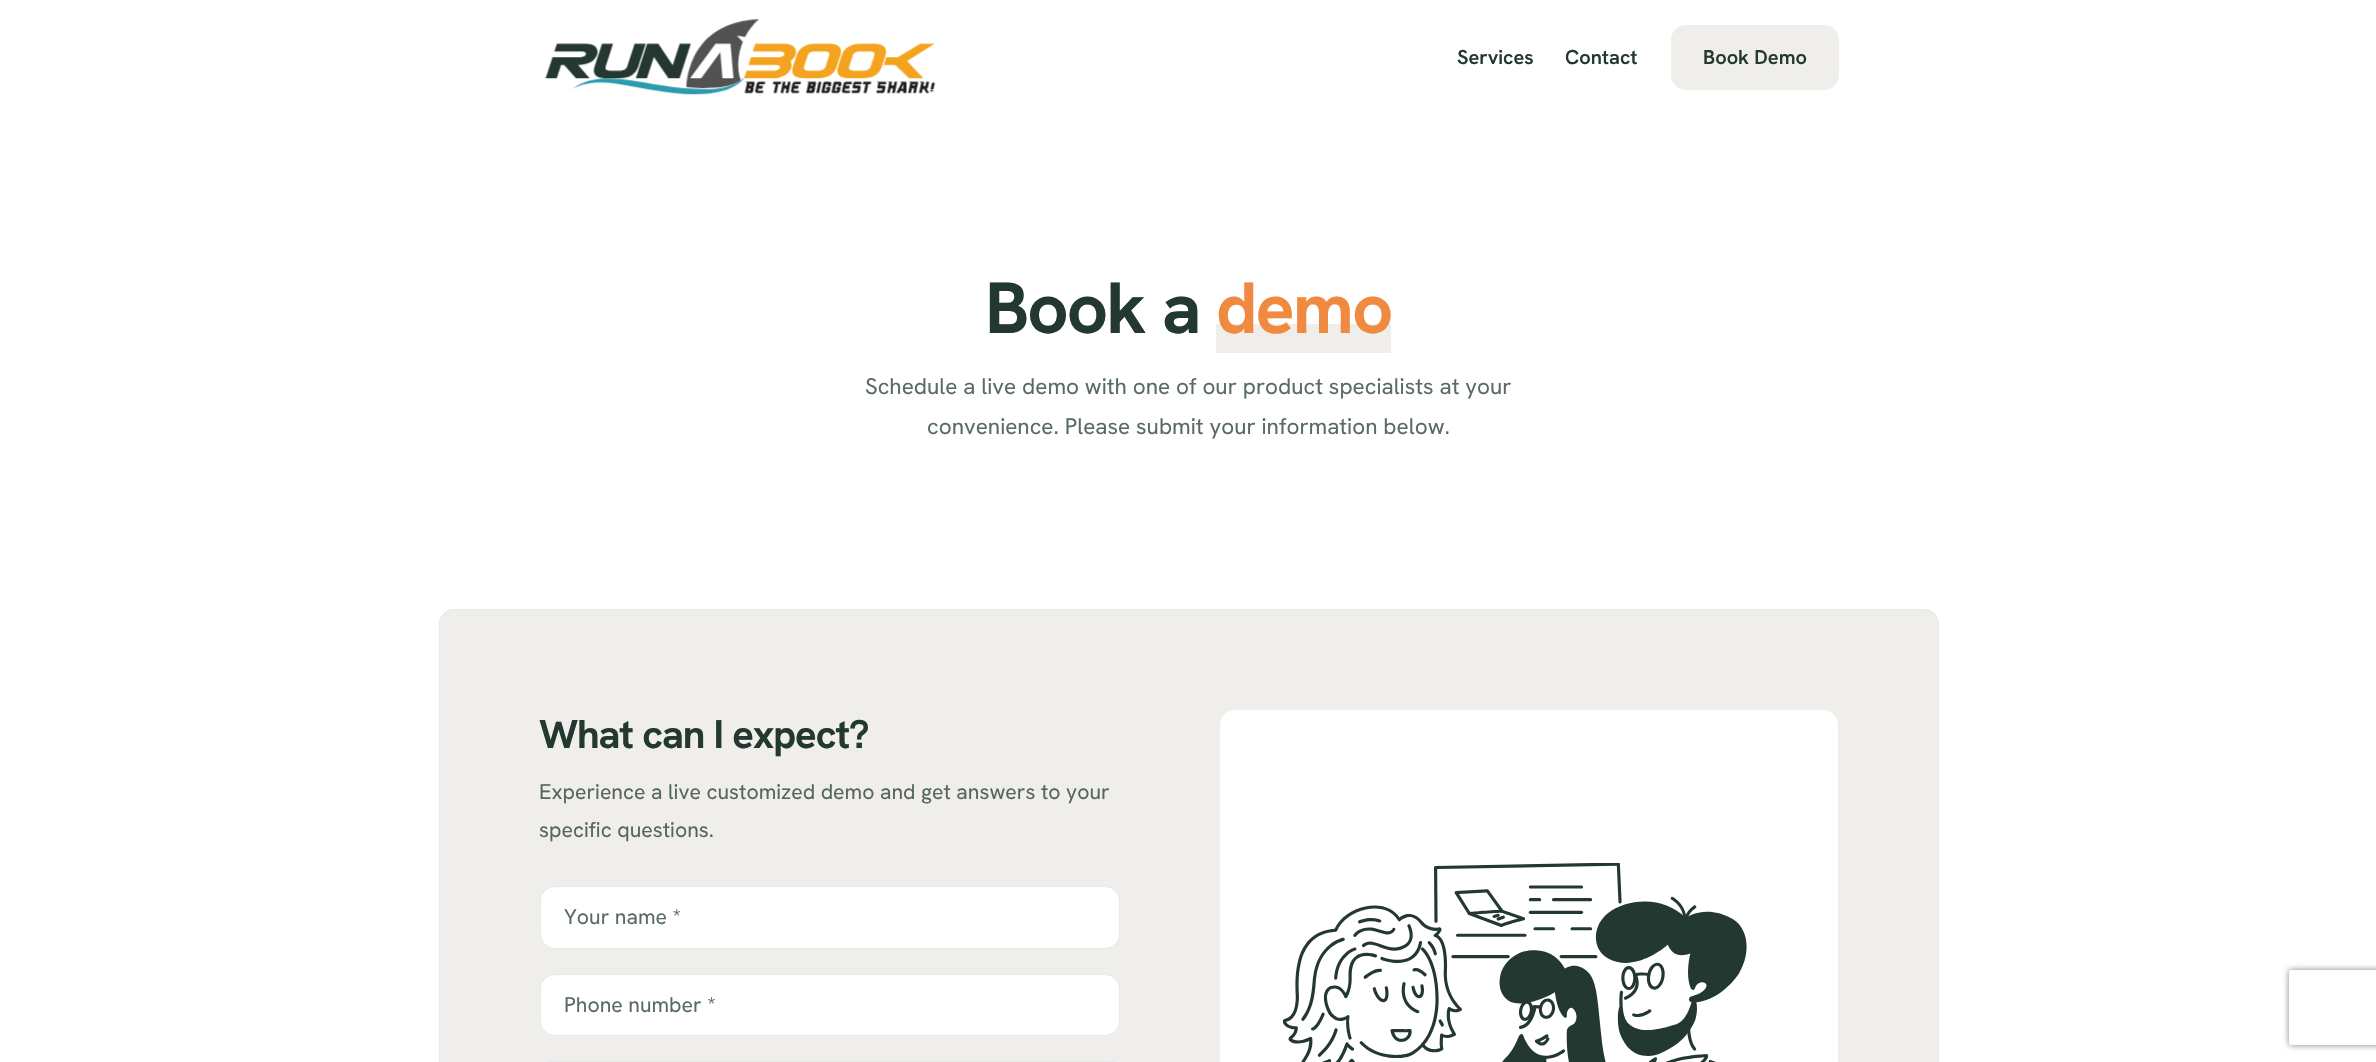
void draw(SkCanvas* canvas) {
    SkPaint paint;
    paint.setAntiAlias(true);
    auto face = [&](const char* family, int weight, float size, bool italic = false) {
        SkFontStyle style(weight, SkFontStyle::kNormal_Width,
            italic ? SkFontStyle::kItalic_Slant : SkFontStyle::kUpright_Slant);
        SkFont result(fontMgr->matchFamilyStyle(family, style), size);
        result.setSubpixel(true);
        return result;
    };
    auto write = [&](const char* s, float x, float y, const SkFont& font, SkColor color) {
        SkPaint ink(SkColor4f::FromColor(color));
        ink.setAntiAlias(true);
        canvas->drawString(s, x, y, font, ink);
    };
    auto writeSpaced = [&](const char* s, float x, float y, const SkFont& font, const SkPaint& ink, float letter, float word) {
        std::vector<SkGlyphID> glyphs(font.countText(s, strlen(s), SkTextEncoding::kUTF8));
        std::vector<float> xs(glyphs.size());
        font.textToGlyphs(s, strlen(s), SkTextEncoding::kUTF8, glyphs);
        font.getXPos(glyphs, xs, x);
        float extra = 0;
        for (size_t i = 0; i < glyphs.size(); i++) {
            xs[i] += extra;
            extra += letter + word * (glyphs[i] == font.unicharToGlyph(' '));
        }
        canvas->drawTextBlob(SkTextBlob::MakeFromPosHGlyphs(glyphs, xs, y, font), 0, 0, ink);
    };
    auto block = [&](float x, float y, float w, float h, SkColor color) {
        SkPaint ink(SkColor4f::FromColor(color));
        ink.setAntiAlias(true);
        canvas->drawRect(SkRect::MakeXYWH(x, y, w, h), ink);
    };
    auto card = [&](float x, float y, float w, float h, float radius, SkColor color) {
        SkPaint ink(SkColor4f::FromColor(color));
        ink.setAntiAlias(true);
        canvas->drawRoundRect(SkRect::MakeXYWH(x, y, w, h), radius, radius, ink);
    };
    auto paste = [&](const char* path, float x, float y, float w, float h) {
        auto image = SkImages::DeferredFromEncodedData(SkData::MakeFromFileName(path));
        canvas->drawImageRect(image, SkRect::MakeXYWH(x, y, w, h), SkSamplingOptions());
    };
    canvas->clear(SK_ColorWHITE);
    paste("pic1.png", 545, 19, 391, 76);
    auto kFont1 = face("Hanken Grotesk", 600, 20);
    write("Services", 1457, 64, kFont1, SkColorSetRGB(35, 56, 49));
    write("Contact", 1565, 64, kFont1, SkColorSetRGB(35, 56, 49));
    card(1671, 25, 168, 65, 15, SkColorSetRGB(240, 238, 234));
    write("Book Demo", 1703, 64, kFont1, SkColorSetRGB(35, 56, 49));
    auto kFont2 = face("Hanken Grotesk", 700, 72.5f);
    paint.setColor(SkColorSetRGB(35, 56, 49));
    writeSpaced("Book a", 985, 333, kFont2, paint, -2, 0);
    block(1216, 324, 175, 29, SkColorSetRGB(240, 238, 234));
    paint.setColor(SkColorSetRGB(241, 138, 65));
    writeSpaced("demo", 1216, 333, kFont2, paint, -2, 0);
    auto kFont3 = face("Hanken Grotesk", 400, 22.5f);
    write("Schedule a live demo with one of our product specialists at your", 865, 394, kFont3, SkColorSetRGB(90, 106, 101));
    write("convenience. Please submit your information below.", 927, 434, kFont3, SkColorSetRGB(90, 106, 101));
    paint.setColor(SkColorSetRGB(240, 238, 234));
    canvas->drawRoundRect(SkRect::MakeXYWH(439.5f, 609.5f, 1499, 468), 14.5f, 14.5f, paint);
    paint.setStyle(SkPaint::kStroke_Style);
    paint.setStrokeWidth(1);
    paint.setColor(SkColorSetRGB(228, 233, 241));
    canvas->drawRoundRect(SkRect::MakeXYWH(439.5f, 609.5f, 1499, 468), 14.5f, 14.5f, paint);
    canvas->drawRoundRect(SkRect::MakeXYWH(439.5f, 609.5f, 1499, 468), 14.5f, 14.5f, paint);
    auto kFont4 = face("Hanken Grotesk", 700, 40);
    paint.setStyle(SkPaint::kFill_Style);
    paint.setColor(SkColorSetRGB(35, 56, 49));
    writeSpaced("What can I expect?", 539, 748, kFont4, paint, -1.1f, 0);
    auto kFont5 = face("Hanken Grotesk", 400, 21.25f);
    write("Experience a live customized demo and get answers to your", 539, 799, kFont5, SkColorSetRGB(86, 102, 95));
    write("specific questions.", 539, 837, kFont5, SkColorSetRGB(86, 102, 95));
    paint.setColor(SK_ColorWHITE);
    canvas->drawRoundRect(SkRect::MakeXYWH(540.5f, 886.5f, 579, 62), 14.5f, 14.5f, paint);
    paint.setStyle(SkPaint::kStroke_Style);
    paint.setColor(SkColorSetRGB(228, 233, 241));
    canvas->drawRoundRect(SkRect::MakeXYWH(540.5f, 886.5f, 579, 62), 14.5f, 14.5f, paint);
    write("Your name *", 564, 924, kFont5, SkColorSetRGB(90, 106, 101));
    paint.setStyle(SkPaint::kFill_Style);
    paint.setColor(SK_ColorWHITE);
    canvas->drawRoundRect(SkRect::MakeXYWH(540.5f, 974.5f, 579, 61), 14.5f, 14.5f, paint);
    paint.setStyle(SkPaint::kStroke_Style);
    paint.setColor(SkColorSetRGB(228, 233, 241));
    canvas->drawRoundRect(SkRect::MakeXYWH(540.5f, 974.5f, 579, 61), 14.5f, 14.5f, paint);
    write("Phone number *", 564, 1012, kFont5, SkColorSetRGB(90, 106, 101));
    canvas->drawRoundRect(SkRect::MakeXYWH(540.5f, 1061.5f, 579, 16), 14.5f, 14.5f, paint);
    card(1220, 710, 618, 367, 15, SK_ColorWHITE);
    paste("pic2.png", 1283, 863, 464, 199);
    canvas->save();
    canvas->clipPath(SkPathBuilder(SkPathFillType::kEvenOdd).moveTo(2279, 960).lineTo(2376, 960).lineTo(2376, 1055).lineTo(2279, 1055).close().moveTo(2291.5f, 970).lineTo(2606.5f, 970).cubicTo(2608, 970, 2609, 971, 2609, 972.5f).lineTo(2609, 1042.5f).cubicTo(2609, 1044, 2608, 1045, 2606.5f, 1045).lineTo(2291.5f, 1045).cubicTo(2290, 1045, 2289, 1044, 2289, 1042.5f).lineTo(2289, 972.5f).cubicTo(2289, 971, 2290, 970, 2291.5f, 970).close().detach(), true);
    paint.setStyle(SkPaint::kFill_Style);
    paint.setColor(SkColorSetRGB(128, 128, 128));
    paint.setMaskFilter(SkMaskFilter::MakeBlur(kNormal_SkBlurStyle, 3));
    canvas->drawRoundRect(SkRect::MakeXYWH(2289, 970, 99, 75), 2.5f, 2.5f, paint);
    paint.setMaskFilter(nullptr);
    canvas->restore();
}
